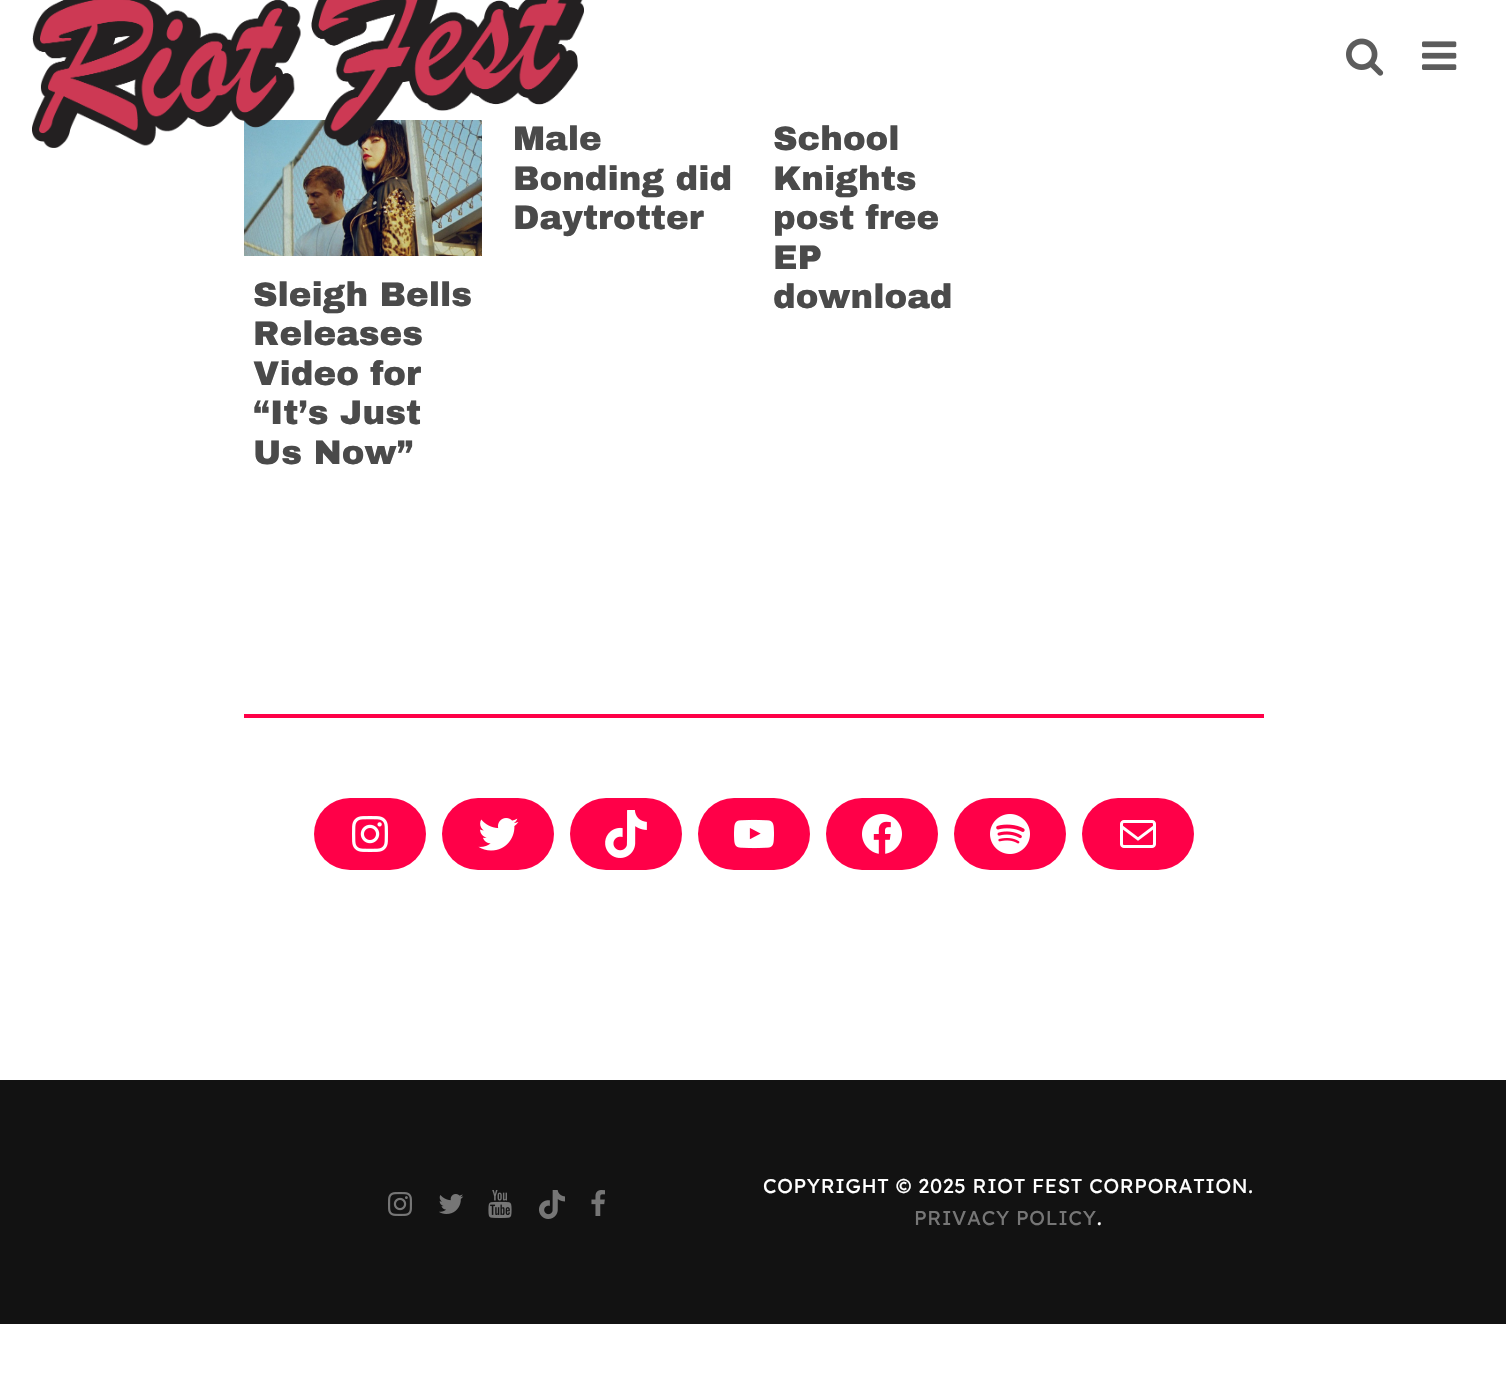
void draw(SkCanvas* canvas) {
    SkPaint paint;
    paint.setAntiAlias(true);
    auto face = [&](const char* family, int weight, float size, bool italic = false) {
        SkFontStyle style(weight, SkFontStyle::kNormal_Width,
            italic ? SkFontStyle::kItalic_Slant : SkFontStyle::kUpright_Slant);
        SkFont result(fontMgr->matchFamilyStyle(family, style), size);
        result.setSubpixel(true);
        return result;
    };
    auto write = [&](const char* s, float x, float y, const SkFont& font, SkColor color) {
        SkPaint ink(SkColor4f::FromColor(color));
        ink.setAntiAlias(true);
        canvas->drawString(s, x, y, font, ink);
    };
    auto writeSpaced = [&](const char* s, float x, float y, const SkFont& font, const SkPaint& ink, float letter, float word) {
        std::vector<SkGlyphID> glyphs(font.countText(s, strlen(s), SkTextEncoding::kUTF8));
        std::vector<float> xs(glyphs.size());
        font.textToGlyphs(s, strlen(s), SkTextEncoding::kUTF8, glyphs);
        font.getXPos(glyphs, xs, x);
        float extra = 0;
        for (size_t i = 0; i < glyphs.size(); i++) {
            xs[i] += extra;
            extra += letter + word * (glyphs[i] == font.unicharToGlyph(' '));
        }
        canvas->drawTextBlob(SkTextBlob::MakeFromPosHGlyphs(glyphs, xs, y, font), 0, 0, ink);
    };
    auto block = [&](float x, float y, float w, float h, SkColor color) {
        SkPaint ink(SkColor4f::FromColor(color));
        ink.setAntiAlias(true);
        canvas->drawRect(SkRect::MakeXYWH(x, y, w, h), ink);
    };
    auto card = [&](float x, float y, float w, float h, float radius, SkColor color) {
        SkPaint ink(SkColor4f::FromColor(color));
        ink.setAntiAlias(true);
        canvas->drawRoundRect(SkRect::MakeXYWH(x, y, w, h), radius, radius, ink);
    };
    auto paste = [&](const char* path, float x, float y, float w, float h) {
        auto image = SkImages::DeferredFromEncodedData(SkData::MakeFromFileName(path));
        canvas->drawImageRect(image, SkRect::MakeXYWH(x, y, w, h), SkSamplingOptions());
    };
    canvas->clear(SK_ColorWHITE);
    auto kFont1 = face("Archivo Black", 900, 34);
    write("Male", 513, 150, kFont1, SkColorSetRGB(74, 74, 74));
    paste("pic4.png", 244, 120, 238, 136);
    paste("pic1.png", 32, 0, 552, 148);
    paste("pic2.png", 1346, 38, 38, 38);
    paste("pic3.png", 1422, 41, 35, 29);
    write("Bonding did", 513, 190, kFont1, SkColorSetRGB(74, 74, 74));
    write("Daytrotter", 513, 229, kFont1, SkColorSetRGB(74, 74, 74));
    write("School", 773, 150, kFont1, SkColorSetRGB(74, 74, 74));
    write("Knights", 773, 190, kFont1, SkColorSetRGB(74, 74, 74));
    write("post free", 773, 229, kFont1, SkColorSetRGB(74, 74, 74));
    write("EP", 773, 269, kFont1, SkColorSetRGB(74, 74, 74));
    write("download", 773, 308, kFont1, SkColorSetRGB(74, 74, 74));
    write("Sleigh Bells", 253, 306, kFont1, SkColorSetRGB(74, 74, 74));
    write("Releases", 253, 345, kFont1, SkColorSetRGB(74, 74, 74));
    write("Video for", 253, 385, kFont1, SkColorSetRGB(74, 74, 74));
    write("“It’s Just", 253, 424, kFont1, SkColorSetRGB(74, 74, 74));
    write("Us Now”", 253, 464, kFont1, SkColorSetRGB(74, 74, 74));
    block(244, 714, 1020, 4, SkColorSetRGB(255, 0, 72));
    card(314, 798, 112, 72, 36, SkColorSetRGB(255, 0, 72));
    paste("pic5.png", 352, 816, 36, 36);
    card(442, 798, 112, 72, 36, SkColorSetRGB(255, 0, 72));
    paste("pic6.png", 478, 818, 41, 33);
    card(570, 798, 112, 72, 36, SkColorSetRGB(255, 0, 72));
    paste("pic7.png", 605, 810, 42, 48);
    card(698, 798, 112, 72, 36, SkColorSetRGB(255, 0, 72));
    paste("pic8.png", 734, 819, 40, 30);
    card(826, 798, 112, 72, 36, SkColorSetRGB(255, 0, 72));
    paste("pic9.png", 862, 814, 40, 40);
    card(954, 798, 112, 72, 36, SkColorSetRGB(255, 0, 72));
    paste("pic10.png", 990, 814, 40, 40);
    card(1082, 798, 112, 72, 36, SkColorSetRGB(255, 0, 72));
    paste("pic11.png", 1120, 820, 36, 28);
    block(0, 1080, 1506, 244, SkColorSetRGB(18, 18, 18));
    paste("pic12.png", 388, 1192, 24, 24);
    paste("pic13.png", 439, 1194, 25, 20);
    paste("pic14.png", 488, 1190, 24, 28);
    paste("pic15.png", 539, 1190, 26, 29);
    paste("pic16.png", 591, 1190, 14, 26);
    auto kFont2 = face("Readex Pro", 400, 20);
    paint.setColor(SK_ColorWHITE);
    writeSpaced("COPYRIGHT © 2025 RIOT FEST CORPORATION.", 763, 1193, kFont2, paint, 0.65f, 0);
    paint.setColor(SkColorSetRGB(118, 118, 118));
    writeSpaced("PRIVACY POLICY", 914, 1225, kFont2, paint, 0.65f, 0);
    paint.setColor(SK_ColorWHITE);
    writeSpaced(".", 1097, 1225, kFont2, paint, 0.65f, 0);
}
